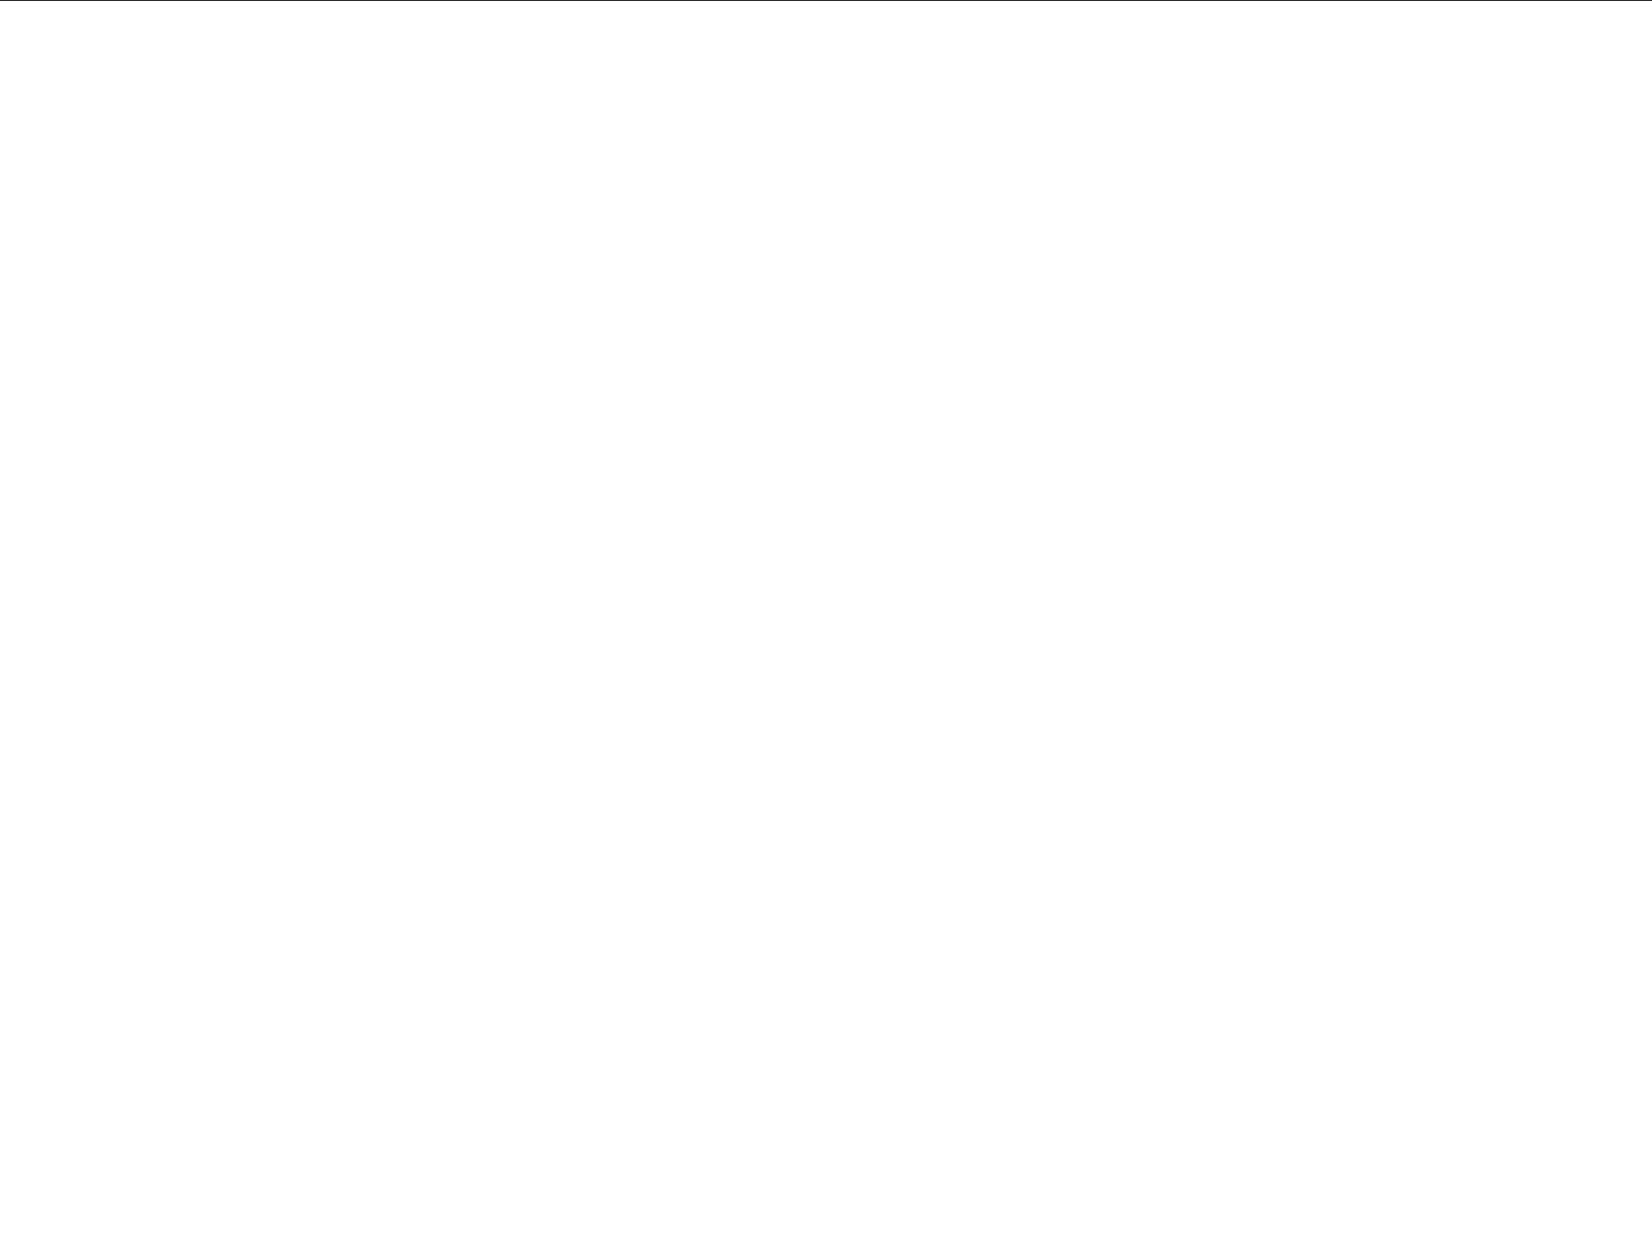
void draw(SkCanvas* canvas) {
    SkPaint paint;
    paint.setAntiAlias(true);
    auto block = [&](float x, float y, float w, float h, SkColor color) {
        SkPaint ink(SkColor4f::FromColor(color));
        ink.setAntiAlias(true);
        canvas->drawRect(SkRect::MakeXYWH(x, y, w, h), ink);
    };
    canvas->clear(SK_ColorWHITE);
    block(0, 0, 1652, 1, SkColorSetRGB(36, 44, 47));
}
